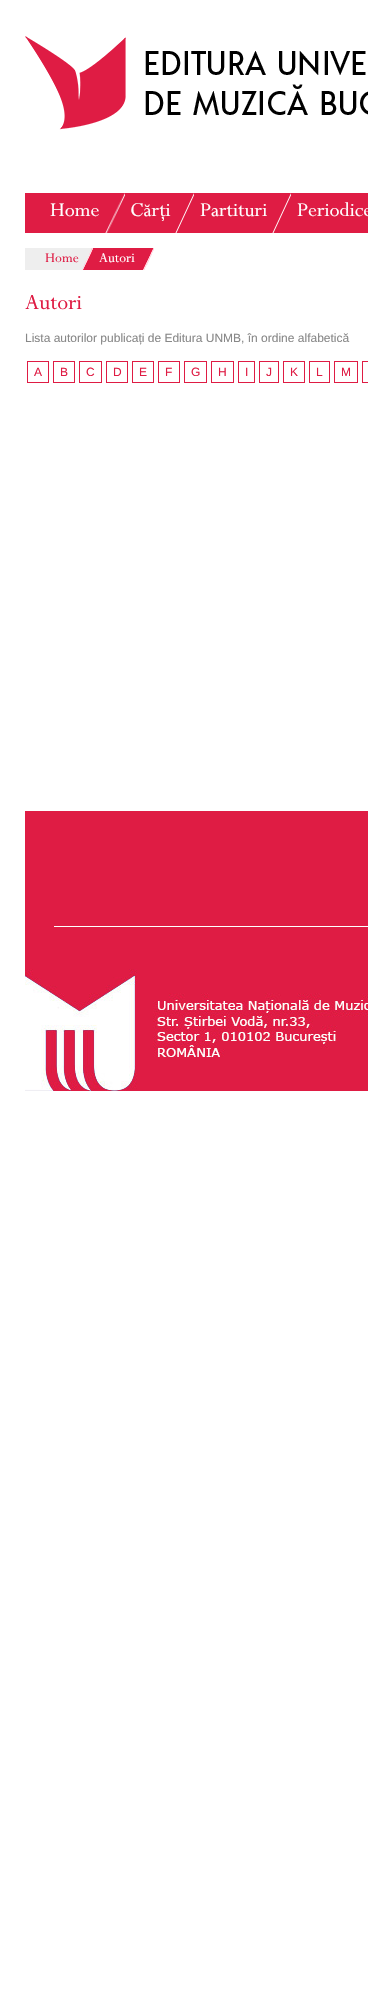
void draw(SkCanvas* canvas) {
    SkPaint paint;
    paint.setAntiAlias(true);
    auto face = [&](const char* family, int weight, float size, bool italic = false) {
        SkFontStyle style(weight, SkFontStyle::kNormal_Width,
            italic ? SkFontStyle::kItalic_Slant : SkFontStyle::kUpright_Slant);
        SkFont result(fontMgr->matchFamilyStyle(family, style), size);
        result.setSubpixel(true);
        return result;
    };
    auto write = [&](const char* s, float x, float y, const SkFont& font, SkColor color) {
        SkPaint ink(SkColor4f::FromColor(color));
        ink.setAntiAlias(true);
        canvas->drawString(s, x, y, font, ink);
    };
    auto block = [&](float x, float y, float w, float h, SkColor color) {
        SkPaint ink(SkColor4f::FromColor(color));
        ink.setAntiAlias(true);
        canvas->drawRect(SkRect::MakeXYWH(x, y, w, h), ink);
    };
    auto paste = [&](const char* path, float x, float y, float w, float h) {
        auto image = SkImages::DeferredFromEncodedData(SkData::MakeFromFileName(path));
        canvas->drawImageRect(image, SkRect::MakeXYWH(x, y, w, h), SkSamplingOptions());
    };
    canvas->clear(SK_ColorWHITE);
    paste("pic1.png", 25, 36, 343, 94);
    block(25, 193, 343, 40, SkColorSetRGB(223, 28, 68));
    auto kFont1 = face("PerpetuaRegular", 400, 22);
    write("Home", 50, 216, kFont1, SK_ColorWHITE);
    paste("pic2.png", 105, 193, 20, 40);
    write("Cărți", 130, 216, kFont1, SK_ColorWHITE);
    paste("pic3.png", 175, 193, 19, 40);
    write("Partituri", 200, 216, kFont1, SK_ColorWHITE);
    paste("pic3.png", 272, 193, 19, 40);
    write("Periodice", 297, 216, kFont1, SK_ColorWHITE);
    block(25, 248, 54, 22, SkColorSetRGB(238, 238, 238));
    auto kFont2 = face("PerpetuaRegular", 400, 15);
    write("Home", 45, 262, kFont2, SkColorSetRGB(223, 28, 68));
    block(93, 248, 50, 22, SkColorSetRGB(223, 28, 68));
    paste("pic4.png", 143, 248, 11, 22);
    paste("pic5.png", 79, 248, 14, 22);
    write("Autori", 99, 262, kFont2, SK_ColorWHITE);
    auto kFont3 = face("PerpetuaRegular", 400, 24);
    write("Autori", 25, 309, kFont3, SkColorSetRGB(223, 28, 68));
    auto kFont4 = face("Liberation Sans", 400, 12);
    write("Lista autorilor publicați de Editura UNMB, în ordine alfabetică", 25, 342, kFont4, SkColorSetRGB(136, 136, 136));
    paint.setStyle(SkPaint::kStroke_Style);
    paint.setStrokeWidth(1);
    paint.setColor(SkColorSetRGB(223, 28, 68));
    canvas->drawRect(SkRect::MakeXYWH(27.5f, 361.5f, 21, 21), paint);
    write("A", 34, 376, kFont4, SkColorSetRGB(223, 28, 68));
    canvas->drawRect(SkRect::MakeXYWH(53.5f, 361.5f, 21, 21), paint);
    write("B", 60, 376, kFont4, SkColorSetRGB(223, 28, 68));
    canvas->drawRect(SkRect::MakeXYWH(79.5f, 361.5f, 22, 21), paint);
    write("C", 86, 376, kFont4, SkColorSetRGB(223, 28, 68));
    canvas->drawRect(SkRect::MakeXYWH(106.5f, 361.5f, 21, 21), paint);
    write("D", 113, 376, kFont4, SkColorSetRGB(223, 28, 68));
    canvas->drawRect(SkRect::MakeXYWH(132.5f, 361.5f, 21, 21), paint);
    write("E", 139, 376, kFont4, SkColorSetRGB(223, 28, 68));
    canvas->drawRect(SkRect::MakeXYWH(158.5f, 361.5f, 21, 21), paint);
    write("F", 165, 376, kFont4, SkColorSetRGB(223, 28, 68));
    canvas->drawRect(SkRect::MakeXYWH(184.5f, 361.5f, 22, 21), paint);
    write("G", 191, 376, kFont4, SkColorSetRGB(223, 28, 68));
    canvas->drawRect(SkRect::MakeXYWH(211.5f, 361.5f, 22, 21), paint);
    write("H", 218, 376, kFont4, SkColorSetRGB(223, 28, 68));
    canvas->drawRect(SkRect::MakeXYWH(238.5f, 361.5f, 16, 21), paint);
    write("I", 245, 376, kFont4, SkColorSetRGB(223, 28, 68));
    canvas->drawRect(SkRect::MakeXYWH(259.5f, 361.5f, 19, 21), paint);
    write("J", 266, 376, kFont4, SkColorSetRGB(223, 28, 68));
    canvas->drawRect(SkRect::MakeXYWH(283.5f, 361.5f, 21, 21), paint);
    write("K", 290, 376, kFont4, SkColorSetRGB(223, 28, 68));
    canvas->drawRect(SkRect::MakeXYWH(309.5f, 361.5f, 20, 21), paint);
    write("L", 316, 376, kFont4, SkColorSetRGB(223, 28, 68));
    canvas->drawRect(SkRect::MakeXYWH(334.5f, 361.5f, 23, 21), paint);
    write("M", 341, 376, kFont4, SkColorSetRGB(223, 28, 68));
    canvas->drawRect(SkRect::MakeXYWH(362.5f, 361.5f, 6, 21), paint);
    block(25, 811, 343, 158, SkColorSetRGB(223, 28, 68));
    paste("pic6.png", 25, 969, 343, 122);
    block(54, 926, 314, 1, SK_ColorWHITE);
}
